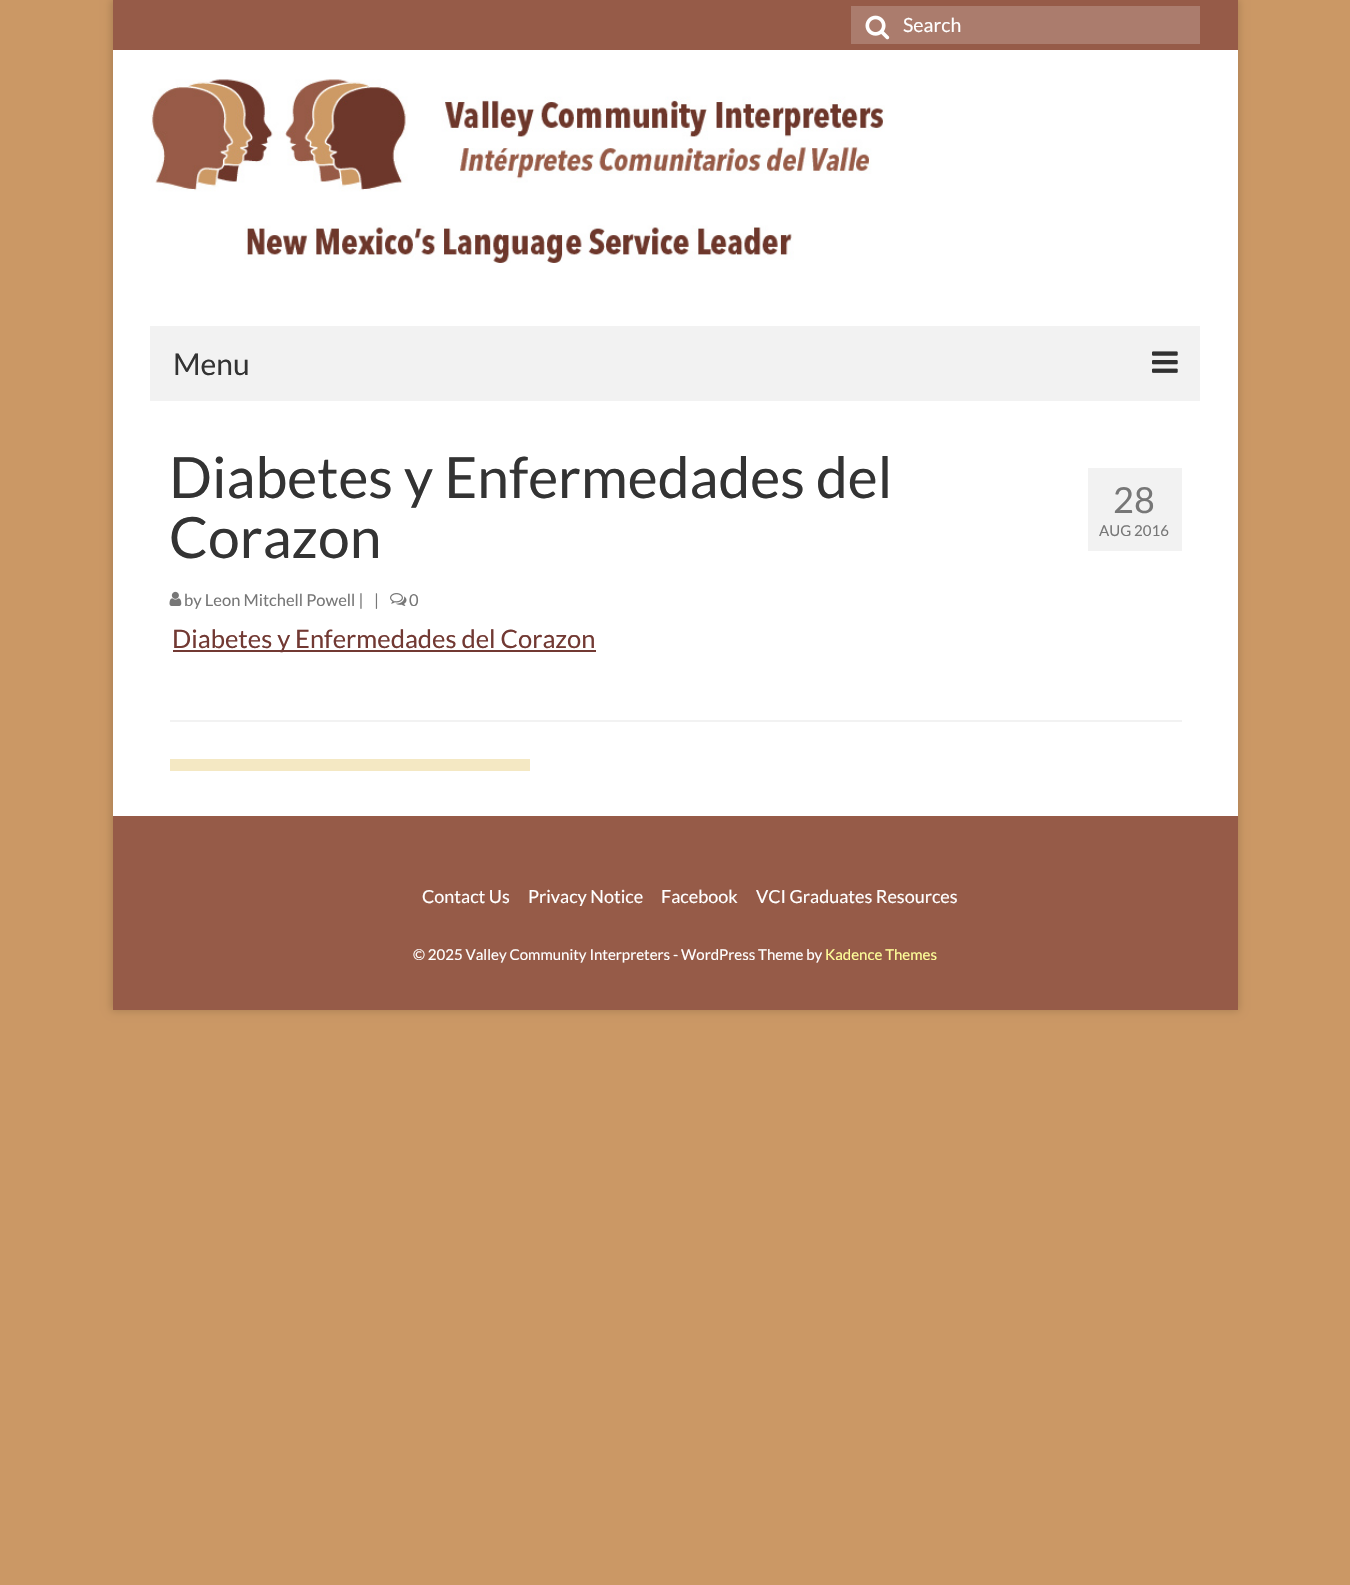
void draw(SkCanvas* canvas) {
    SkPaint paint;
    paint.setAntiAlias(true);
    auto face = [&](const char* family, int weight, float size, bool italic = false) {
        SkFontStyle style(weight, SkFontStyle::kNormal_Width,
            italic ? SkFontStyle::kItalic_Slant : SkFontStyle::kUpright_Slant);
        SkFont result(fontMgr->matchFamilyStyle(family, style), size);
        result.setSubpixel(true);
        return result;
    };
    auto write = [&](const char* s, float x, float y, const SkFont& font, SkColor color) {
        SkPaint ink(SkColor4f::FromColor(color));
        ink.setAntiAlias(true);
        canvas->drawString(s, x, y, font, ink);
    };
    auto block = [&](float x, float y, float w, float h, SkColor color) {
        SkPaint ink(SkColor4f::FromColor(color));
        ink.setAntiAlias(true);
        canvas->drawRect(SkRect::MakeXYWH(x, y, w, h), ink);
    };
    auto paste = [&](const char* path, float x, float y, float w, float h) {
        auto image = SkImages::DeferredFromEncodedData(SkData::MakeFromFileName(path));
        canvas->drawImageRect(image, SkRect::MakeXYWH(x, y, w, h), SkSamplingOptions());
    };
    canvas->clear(SkColorSetRGB(203, 152, 101));
    paint.setColor(SkColorSetARGB(41, 0, 0, 0));
    paint.setMaskFilter(SkMaskFilter::MakeBlur(kNormal_SkBlurStyle, 4));
    canvas->drawRect(SkRect::MakeXYWH(111, -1, 1128, 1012), paint);
    paint.setMaskFilter(nullptr);
    block(113, 50, 1125, 766, SK_ColorWHITE);
    block(113, 0, 1125, 50, SkColorSetRGB(150, 91, 72));
    block(851, 6, 349, 38, SkColorSetRGB(171, 124, 109));
    paste("pic1.png", 865, 15, 25, 25);
    auto kFont1 = face("Lato", 400, 19.5f);
    write("Search", 903, 32, kFont1, SK_ColorWHITE);
    paste("pic2.png", 151, 79, 734, 184);
    block(150, 326, 1050, 75, SkColorSetRGB(242, 242, 242));
    auto kFont2 = face("Lato", 400, 30);
    write("Menu", 173, 375, kFont2, SkColorSetRGB(51, 51, 51));
    paste("pic3.png", 1152, 351, 26, 22);
    auto kFont3 = face("Lato", 400, 57);
    write("Diabetes y Enfermedades del", 169, 498, kFont3, SkColorSetRGB(51, 51, 51));
    write("Corazon", 169, 558, kFont3, SkColorSetRGB(51, 51, 51));
    paste("pic4.png", 169, 591, 13, 15);
    auto kFont4 = face("Lato", 400, 16.5f);
    write("by Leon Mitchell Powell |", 184, 606, kFont4, SkColorSetRGB(119, 119, 119));
    write("|", 374, 606, kFont4, SkColorSetRGB(119, 119, 119));
    paste("pic5.png", 390, 593, 17, 13);
    write("0", 409, 606, kFont4, SkColorSetRGB(119, 119, 119));
    block(1088, 468, 94, 83, SkColorSetRGB(242, 242, 242));
    auto kFont5 = face("Lato", 400, 36);
    write("28", 1113, 513, kFont5, SkColorSetRGB(119, 119, 119));
    auto kFont6 = face("Lato", 400, 15);
    write("AUG 2016", 1099, 536, kFont6, SkColorSetRGB(119, 119, 119));
    block(173, 650, 423, 2, SkColorSetRGB(114, 57, 51));
    auto kFont7 = face("Lato", 400, 25.5f);
    write("Diabetes y Enfermedades del Corazon", 172, 648, kFont7, SkColorSetRGB(114, 57, 51));
    block(170, 720, 1012, 2, SkColorSetRGB(242, 242, 242));
    block(170, 759, 360, 12, SkColorSetRGB(244, 232, 195));
    block(113, 816, 1125, 194, SkColorSetRGB(150, 91, 72));
    auto kFont8 = face("Lato", 400, 18);
    write("Contact Us", 422, 903, kFont8, SK_ColorWHITE);
    write("Privacy Notice", 528, 903, kFont8, SK_ColorWHITE);
    write("Facebook", 661, 903, kFont8, SK_ColorWHITE);
    write("VCI Graduates Resources", 756, 903, kFont8, SK_ColorWHITE);
    write("© 2025 Valley Community Interpreters - WordPress Theme by", 413, 960, kFont6, SK_ColorWHITE);
    write("Kadence Themes", 825, 960, kFont6, SkColorSetRGB(255, 255, 153));
}
